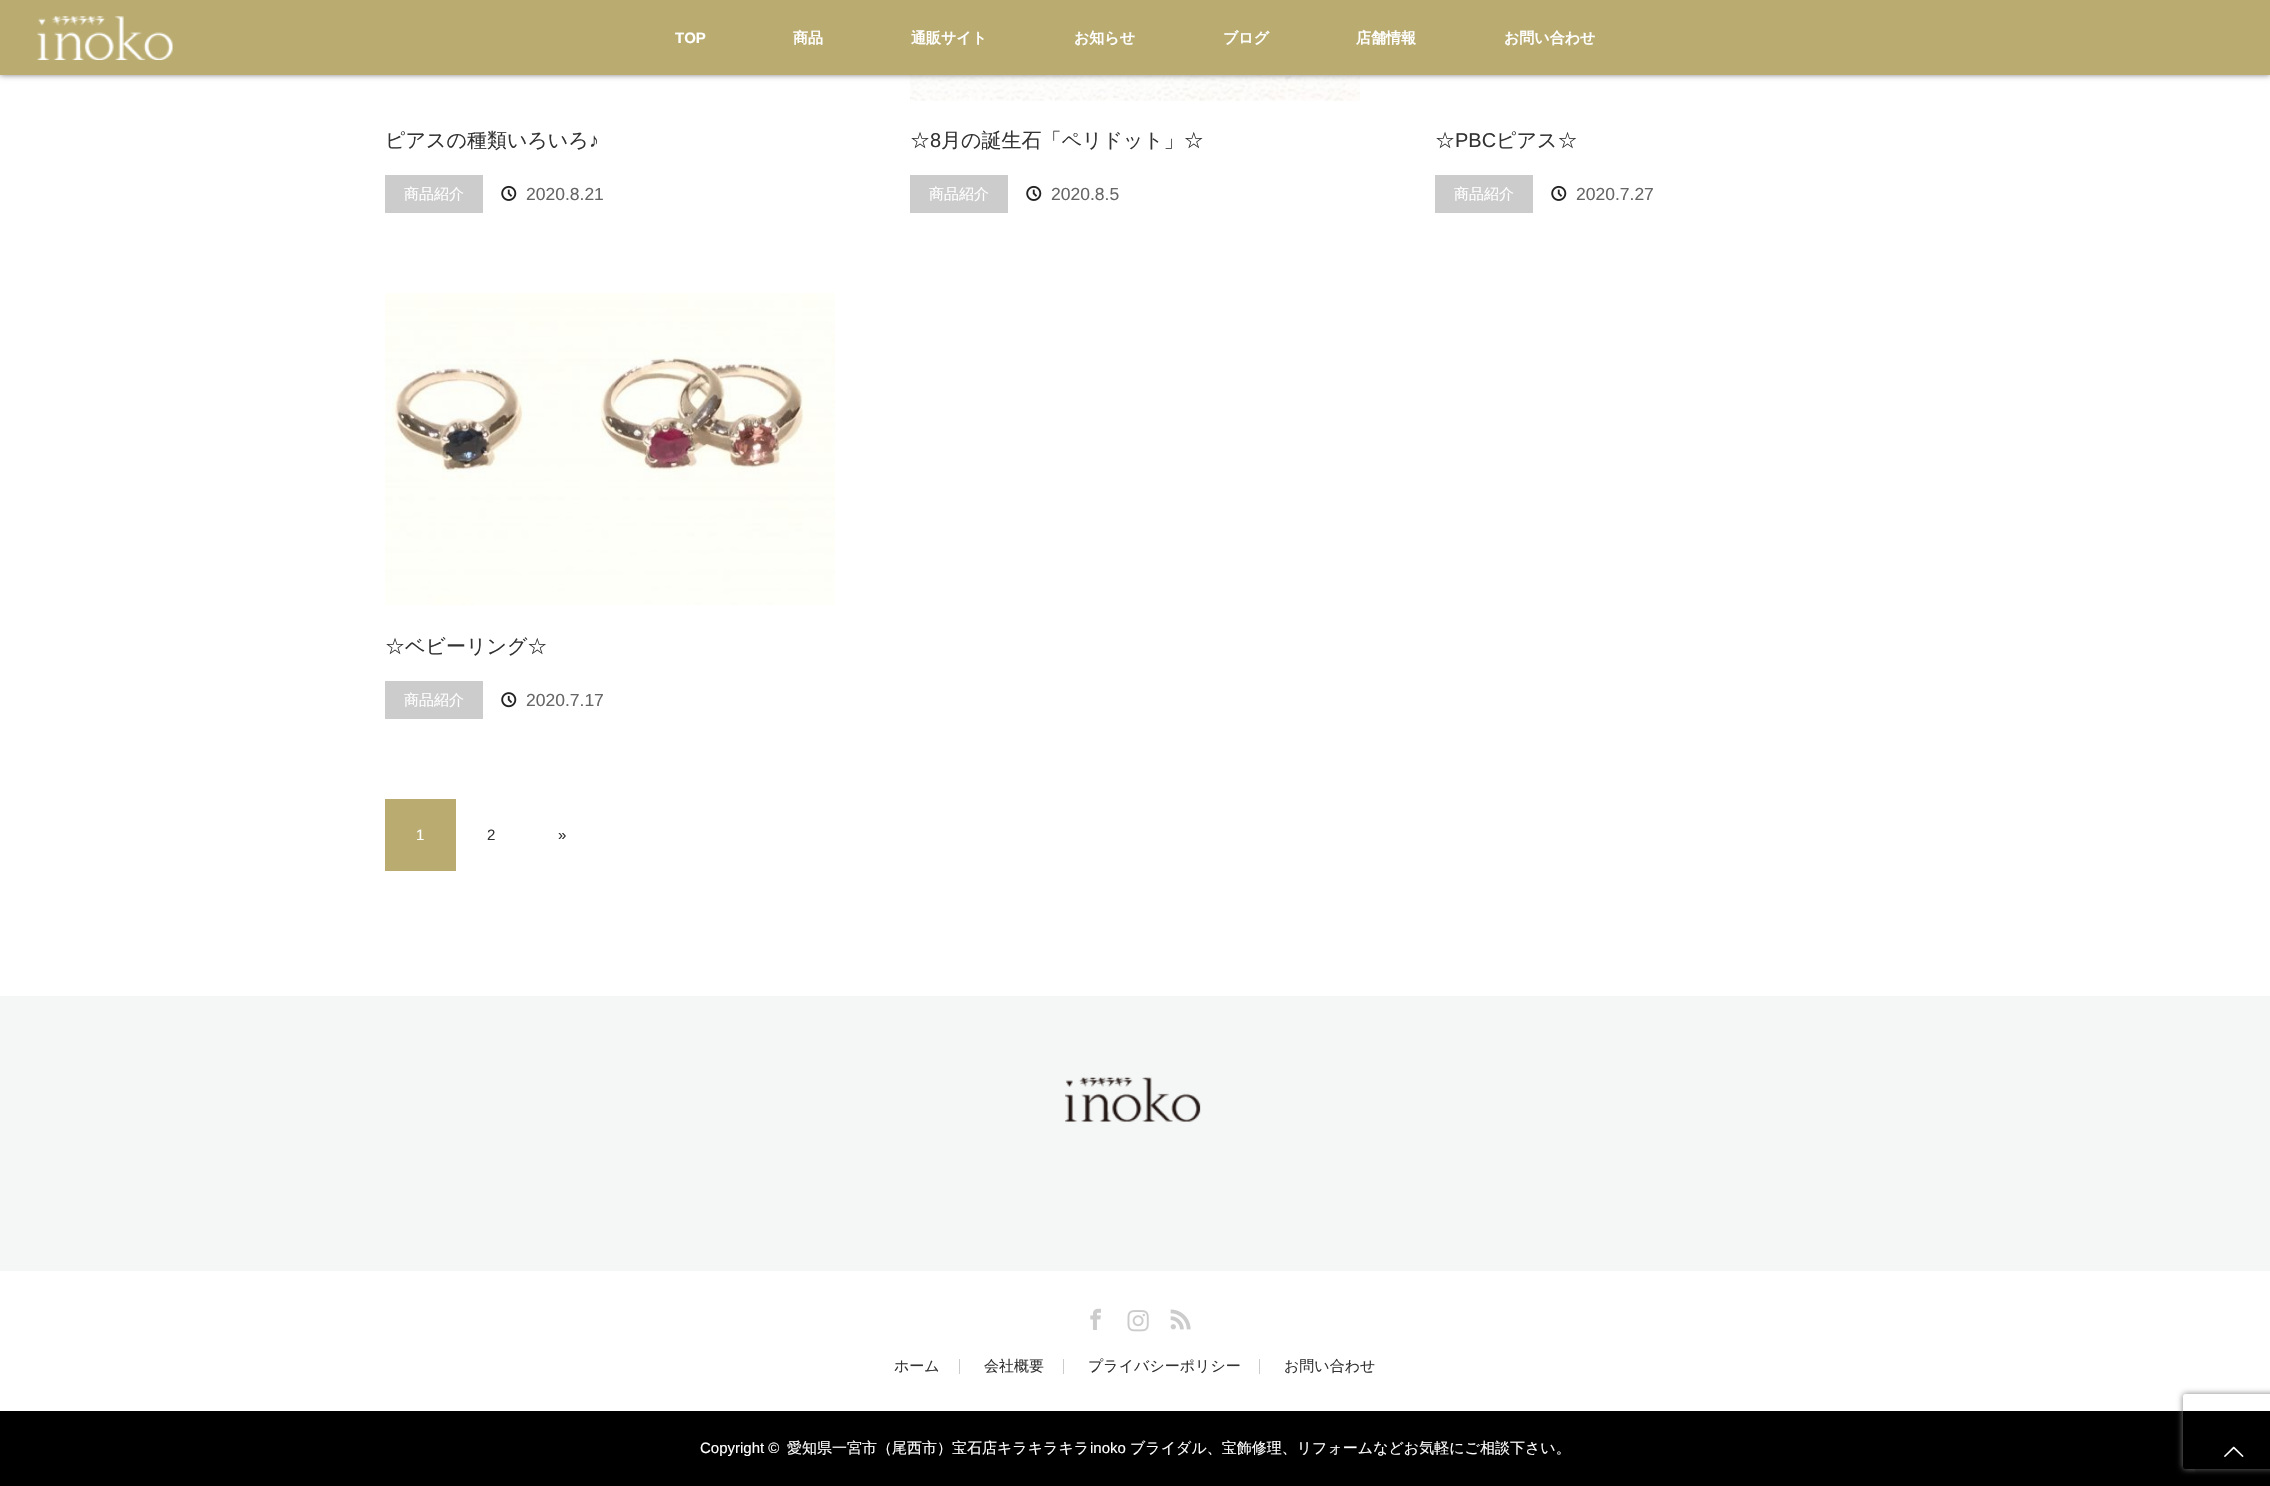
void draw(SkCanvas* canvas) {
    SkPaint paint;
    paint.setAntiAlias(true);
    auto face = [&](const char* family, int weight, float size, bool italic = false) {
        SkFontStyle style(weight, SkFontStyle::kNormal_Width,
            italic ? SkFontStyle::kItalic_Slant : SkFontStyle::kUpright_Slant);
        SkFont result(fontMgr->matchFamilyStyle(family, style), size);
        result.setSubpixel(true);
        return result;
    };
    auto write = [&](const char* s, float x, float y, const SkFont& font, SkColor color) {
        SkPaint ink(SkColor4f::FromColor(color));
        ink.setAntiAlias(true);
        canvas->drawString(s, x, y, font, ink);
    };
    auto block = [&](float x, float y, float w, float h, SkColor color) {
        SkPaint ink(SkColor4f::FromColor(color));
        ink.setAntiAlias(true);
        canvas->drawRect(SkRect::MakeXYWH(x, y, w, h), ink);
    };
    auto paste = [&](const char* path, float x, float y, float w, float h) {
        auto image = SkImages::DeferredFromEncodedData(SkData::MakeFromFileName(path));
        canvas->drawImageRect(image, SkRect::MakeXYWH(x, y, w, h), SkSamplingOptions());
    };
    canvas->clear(SK_ColorWHITE);
    paste("pic3.png", 910, 75, 450, 26);
    paint.setColor(SkColorSetARGB(128, 0, 0, 0));
    paint.setMaskFilter(SkMaskFilter::MakeBlur(kNormal_SkBlurStyle, 3));
    canvas->drawRect(SkRect::MakeXYWH(0, 0, 2270, 75), paint);
    paint.setMaskFilter(nullptr);
    block(0, 0, 2270, 75, SkColorSetRGB(186, 172, 113));
    paste("pic1.png", 37, 16, 136, 44);
    auto kFont1 = face("Liberation Sans", 700, 15);
    write("TOP", 675, 43, kFont1, SK_ColorWHITE);
    auto kFont2 = face("WenQuanYi Zen Hei", 700, 15);
    write("商品", 793, 43, kFont2, SK_ColorWHITE);
    write("通販サイト", 911, 43, kFont2, SK_ColorWHITE);
    write("お知らせ", 1074, 43, kFont2, SK_ColorWHITE);
    write("ブログ", 1223, 43, kFont2, SK_ColorWHITE);
    write("店舗情報", 1356, 43, kFont2, SK_ColorWHITE);
    write("お問い合わせ", 1504, 43, kFont2, SK_ColorWHITE);
    auto kFont3 = face("WenQuanYi Zen Hei", 500, 20);
    write("ピアスの種類いろいろ", 385, 147, kFont3, SkColorSetRGB(51, 51, 51));
    auto kFont4 = face("Liberation Sans", 400, 20);
    write("♪", 589, 147, kFont4, SkColorSetRGB(51, 51, 51));
    block(385, 175, 98, 38, SkColorSetRGB(204, 204, 204));
    auto kFont5 = face("WenQuanYi Zen Hei", 500, 15);
    write("商品紹介", 404, 199, kFont5, SK_ColorWHITE);
    paste("pic2.png", 501, 185, 16, 16);
    auto kFont6 = face("Liberation Sans", 400, 17.5f);
    write("2020.8.21", 526, 200, kFont6, SkColorSetRGB(102, 102, 102));
    write("☆", 910, 147, kFont3, SkColorSetRGB(51, 51, 51));
    write("8", 930, 147, kFont4, SkColorSetRGB(51, 51, 51));
    write("月の誕生石「ペリドット」☆", 941, 147, kFont3, SkColorSetRGB(51, 51, 51));
    block(910, 175, 98, 38, SkColorSetRGB(204, 204, 204));
    write("商品紹介", 929, 199, kFont5, SK_ColorWHITE);
    paste("pic2.png", 1026, 185, 16, 16);
    write("2020.8.5", 1051, 200, kFont6, SkColorSetRGB(102, 102, 102));
    write("☆", 1435, 147, kFont3, SkColorSetRGB(51, 51, 51));
    write("PBC", 1455, 147, kFont4, SkColorSetRGB(51, 51, 51));
    write("ピアス☆", 1496, 147, kFont3, SkColorSetRGB(51, 51, 51));
    block(1435, 175, 98, 38, SkColorSetRGB(204, 204, 204));
    write("商品紹介", 1454, 199, kFont5, SK_ColorWHITE);
    paste("pic2.png", 1551, 185, 16, 16);
    write("2020.7.27", 1576, 200, kFont6, SkColorSetRGB(102, 102, 102));
    paste("pic4.png", 385, 293, 450, 312);
    write("☆ベビーリング☆", 385, 653, kFont3, SkColorSetRGB(51, 51, 51));
    block(385, 681, 98, 38, SkColorSetRGB(204, 204, 204));
    write("商品紹介", 404, 705, kFont5, SK_ColorWHITE);
    paste("pic5.png", 501, 692, 16, 16);
    write("2020.7.17", 526, 706, kFont6, SkColorSetRGB(102, 102, 102));
    block(385, 799, 71, 72, SkColorSetRGB(186, 172, 113));
    auto kFont7 = face("Liberation Sans", 400, 15);
    write("1", 416, 840, kFont7, SK_ColorWHITE);
    write("2", 487, 840, kFont7, SkColorSetRGB(51, 51, 51));
    write("»", 558, 840, kFont7, SkColorSetRGB(51, 51, 51));
    block(0, 996, 2270, 275, SkColorSetRGB(245, 247, 246));
    paste("pic6.png", 1065, 1077, 136, 45);
    paste("pic7.png", 1090, 1308, 11, 22);
    paste("pic8.png", 1127, 1310, 22, 22);
    paste("pic9.png", 1170, 1309, 21, 21);
    block(959, 1359, 1, 15, SkColorSetRGB(204, 204, 204));
    write("ホーム", 894, 1371, kFont5, SkColorSetRGB(51, 51, 51));
    block(1063, 1359, 1, 15, SkColorSetRGB(204, 204, 204));
    write("会社概要", 984, 1371, kFont5, SkColorSetRGB(51, 51, 51));
    block(1259, 1359, 1, 15, SkColorSetRGB(204, 204, 204));
    write("プライバシーポリシー", 1088, 1371, kFont5, SkColorSetRGB(51, 51, 51));
    write("お問い合わせ", 1284, 1371, kFont5, SkColorSetRGB(51, 51, 51));
    block(0, 1411, 2270, 75, SK_ColorBLACK);
    write("Copyright ©", 700, 1453, kFont7, SK_ColorWHITE);
    write("愛知県一宮市（尾西市）宝石店キラキラキラ", 787, 1453, kFont5, SK_ColorWHITE);
    write("inoko", 1090, 1453, kFont7, SK_ColorWHITE);
    write("ブライダル、宝飾修理、リフォームなどお気軽にご相談下さい。", 1130, 1453, kFont5, SK_ColorWHITE);
    canvas->save();
    canvas->clipPath(SkPathBuilder(SkPathFillType::kEvenOdd).moveTo(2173, 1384).lineTo(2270, 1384).lineTo(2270, 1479).lineTo(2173, 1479).close().moveTo(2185.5f, 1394).lineTo(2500.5f, 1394).cubicTo(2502, 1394, 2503, 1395, 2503, 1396.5f).lineTo(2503, 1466.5f).cubicTo(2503, 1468, 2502, 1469, 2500.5f, 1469).lineTo(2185.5f, 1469).cubicTo(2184, 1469, 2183, 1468, 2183, 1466.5f).lineTo(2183, 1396.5f).cubicTo(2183, 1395, 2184, 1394, 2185.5f, 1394).close().detach(), true);
    paint.setColor(SkColorSetRGB(128, 128, 128));
    paint.setMaskFilter(SkMaskFilter::MakeBlur(kNormal_SkBlurStyle, 3));
    canvas->drawRoundRect(SkRect::MakeXYWH(2183, 1394, 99, 75), 2.5f, 2.5f, paint);
    paint.setMaskFilter(nullptr);
    canvas->restore();
    block(2195, 1468, 75, 5, SkColorSetARGB(51, 0, 0, 0));
    paste("pic10.png", 2224, 1446, 20, 11);
}
